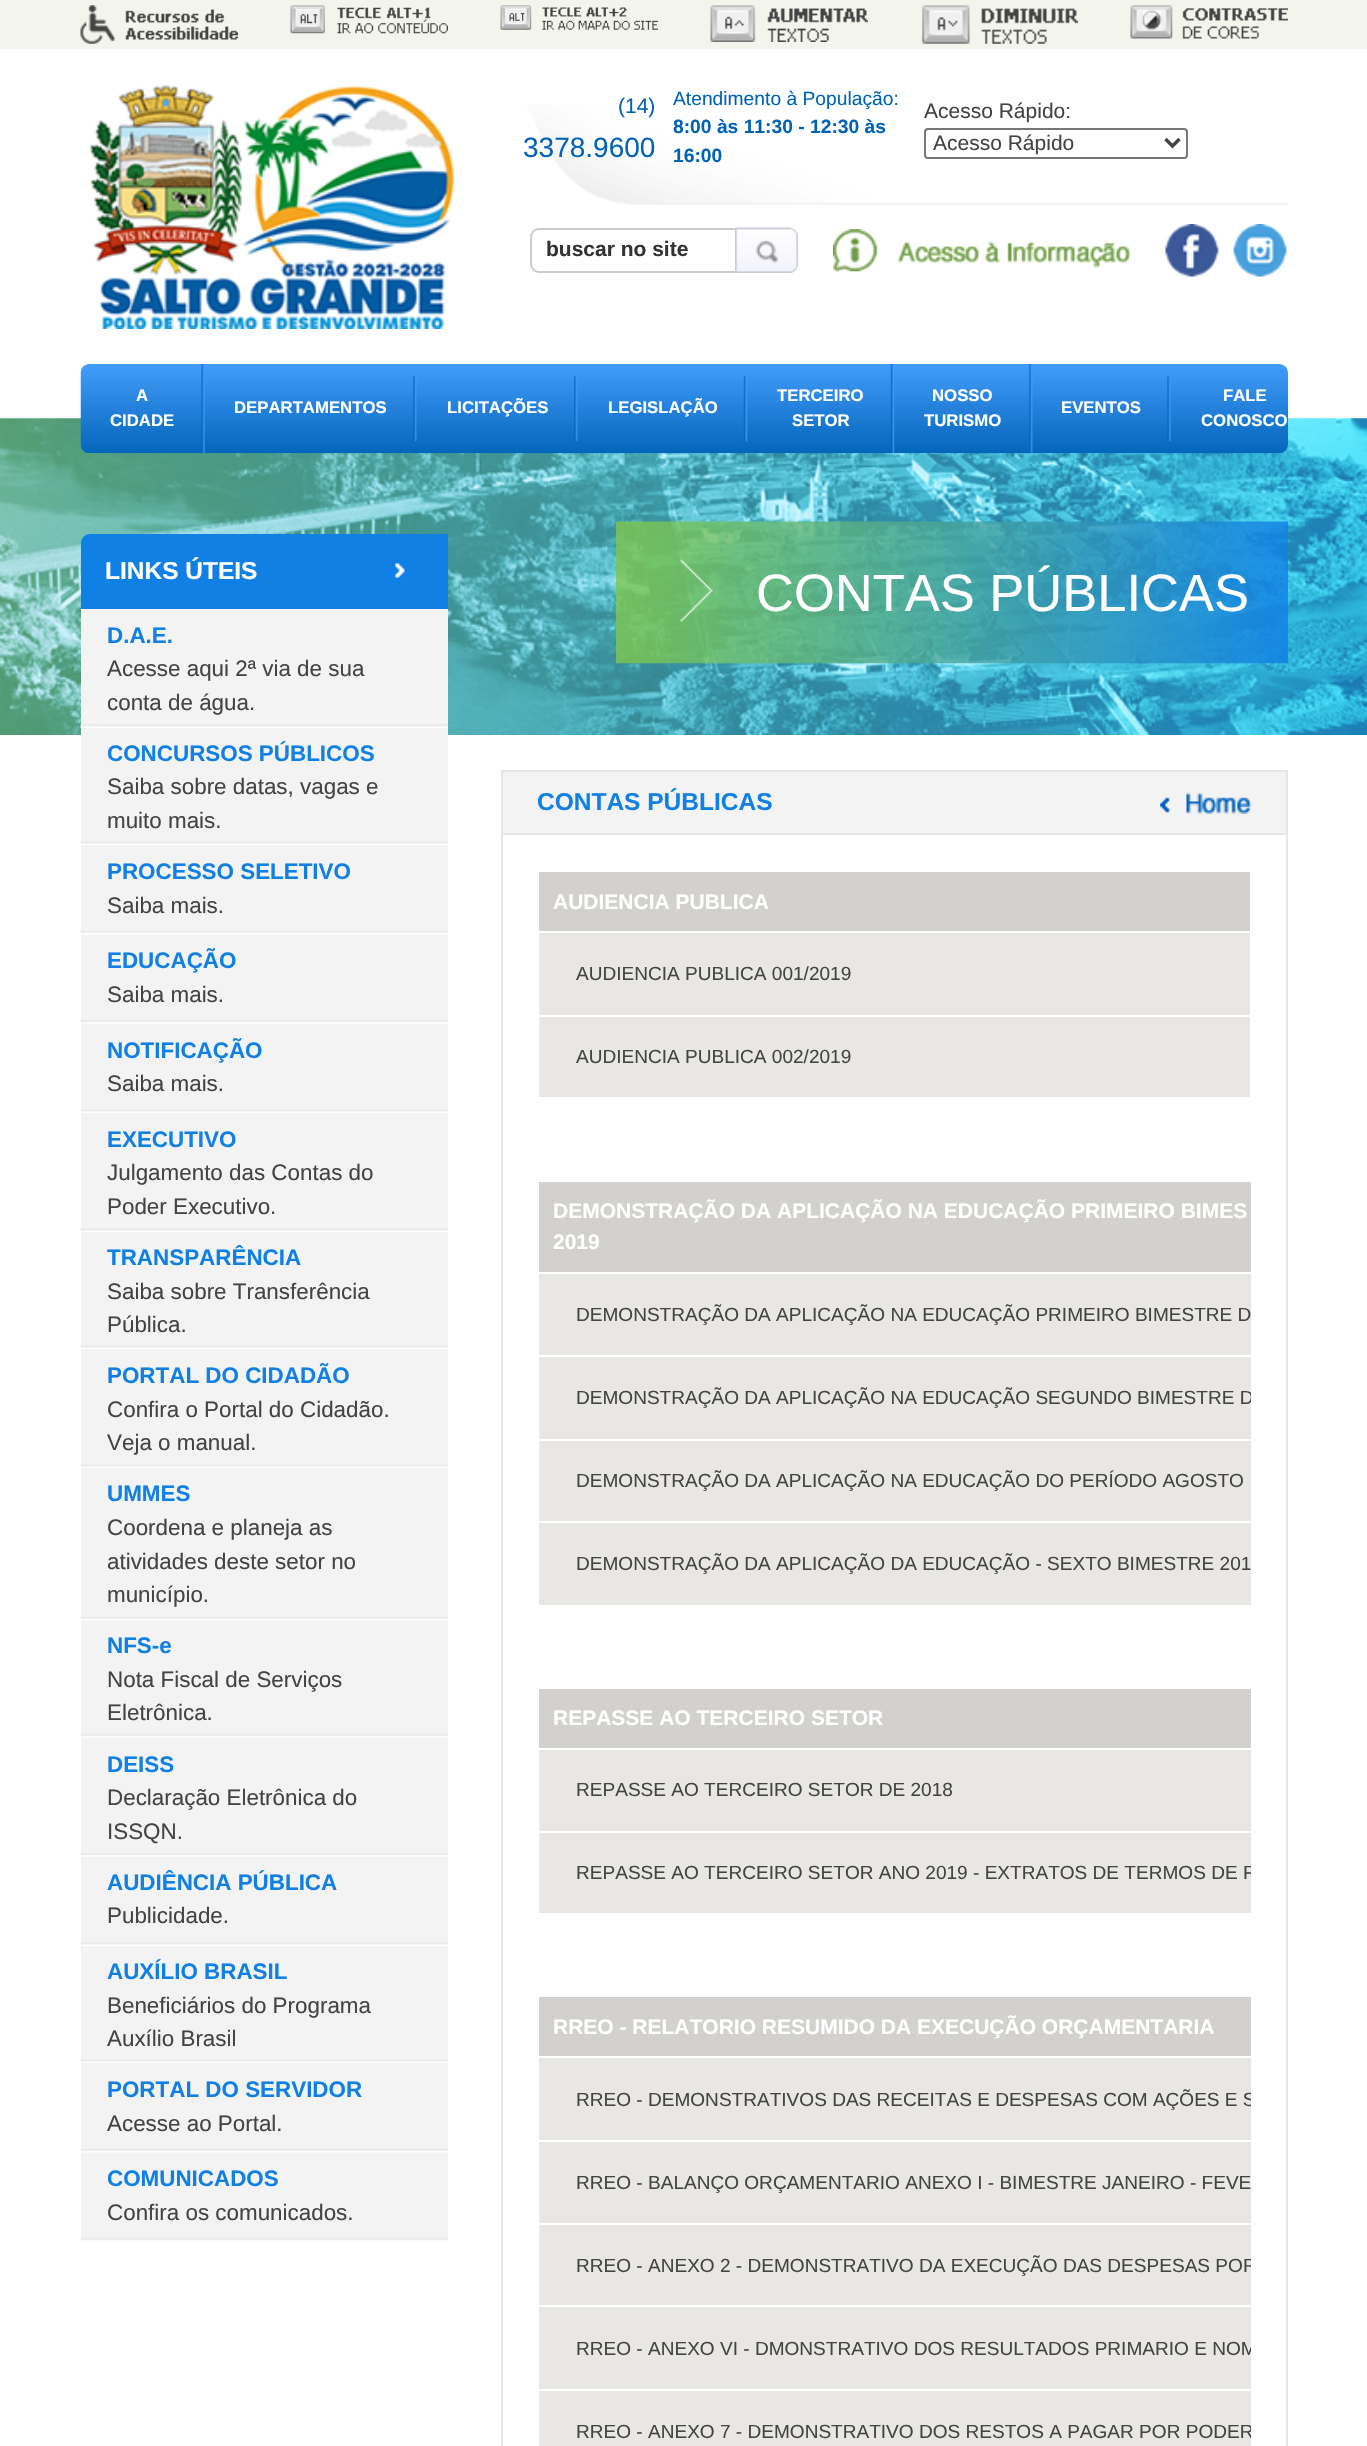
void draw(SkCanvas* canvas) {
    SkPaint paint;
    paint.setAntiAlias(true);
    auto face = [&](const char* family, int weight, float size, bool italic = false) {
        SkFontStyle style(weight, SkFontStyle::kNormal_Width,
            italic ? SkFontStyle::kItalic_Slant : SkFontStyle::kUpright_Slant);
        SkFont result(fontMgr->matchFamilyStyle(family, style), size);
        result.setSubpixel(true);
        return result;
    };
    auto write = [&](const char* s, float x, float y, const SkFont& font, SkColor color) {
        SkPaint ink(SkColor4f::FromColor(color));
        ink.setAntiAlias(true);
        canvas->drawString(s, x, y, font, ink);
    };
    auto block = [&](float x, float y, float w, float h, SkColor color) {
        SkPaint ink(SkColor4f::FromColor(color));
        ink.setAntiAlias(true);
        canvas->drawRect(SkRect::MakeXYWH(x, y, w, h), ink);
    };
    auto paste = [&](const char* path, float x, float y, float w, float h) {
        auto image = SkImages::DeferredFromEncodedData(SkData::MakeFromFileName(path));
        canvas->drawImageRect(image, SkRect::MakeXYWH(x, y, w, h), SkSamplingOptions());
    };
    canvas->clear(SK_ColorWHITE);
    block(0, 0, 1367, 49, SkColorSetRGB(243, 244, 236));
    paste("pic1.png", 80, 5, 158, 39);
    paste("pic2.png", 290, 5, 158, 29);
    paste("pic3.png", 500, 5, 158, 25);
    paste("pic4.png", 710, 5, 158, 37);
    paste("pic5.png", 922, 5, 156, 39);
    paste("pic6.png", 1130, 5, 158, 34);
    paste("pic7.png", 89, 85, 366, 244);
    paste("pic8.png", 527, 104, 761, 101);
    auto kFont1 = face("Liberation Sans", 400, 21);
    write("(14)", 618, 113, kFont1, SkColorSetRGB(0, 99, 184));
    auto kFont2 = face("Liberation Sans", 400, 28);
    write("3378.9600", 523, 157, kFont2, SkColorSetRGB(0, 99, 184));
    auto kFont3 = face("Liberation Sans", 400, 19.25f);
    write("Atendimento à População:", 673, 105, kFont3, SkColorSetRGB(0, 99, 184));
    auto kFont4 = face("Liberation Sans", 700, 19.25f);
    write("8:00 às 11:30 - 12:30 às", 673, 133, kFont4, SkColorSetRGB(0, 99, 184));
    write("16:00", 673, 162, kFont4, SkColorSetRGB(0, 99, 184));
    write("Acesso Rápido:", 924, 118, kFont1, SkColorSetRGB(68, 68, 68));
    paint.setStyle(SkPaint::kStroke_Style);
    paint.setStrokeWidth(2);
    paint.setColor(SkColorSetRGB(118, 118, 118));
    canvas->drawRoundRect(SkRect::MakeXYWH(925, 129, 262, 29), 3, 3, paint);
    paint.setStrokeWidth(3.5f);
    paint.setColor(SkColorSetRGB(68, 68, 68));
    canvas->drawPath(SkPathBuilder().moveTo(1165.5f, 139).lineTo(1172.5f, 146).lineTo(1179.5f, 139).detach(), paint);
    write("Acesso Rápido", 933, 150, kFont1, SkColorSetRGB(68, 68, 68));
    paint.setStrokeWidth(2);
    paint.setColor(SkColorSetRGB(204, 204, 204));
    canvas->drawRoundRect(SkRect::MakeXYWH(531, 229, 266, 43), 8, 8, paint);
    auto kFont5 = face("Liberation Sans", 700, 21);
    write("buscar no site", 546, 256, kFont5, SkColorSetRGB(51, 51, 51));
    paste("pic9.png", 735, 227, 63, 46);
    paste("pic10.png", 833, 229, 298, 43);
    paste("pic11.png", 1165, 224, 54, 53);
    paste("pic12.png", 1233, 224, 54, 53);
    paste("pic28.png", 0, 418, 1367, 317);
    paste("pic13.png", 80, 364, 1208, 90);
    paste("pic14.png", 201, 364, 4, 90);
    auto kFont6 = face("Liberation Sans", 700, 16.75f);
    write("A", 136, 401, kFont6, SK_ColorWHITE);
    write("CIDADE", 110, 426, kFont6, SK_ColorWHITE);
    paste("pic15.png", 413, 376, 4, 65);
    write("DEPARTAMENTOS", 234, 413, kFont6, SK_ColorWHITE);
    paste("pic15.png", 574, 376, 4, 65);
    write("LICITAÇÕES", 447, 413, kFont6, SK_ColorWHITE);
    paste("pic16.png", 743, 376, 5, 65);
    write("LEGISLAÇÃO", 608, 413, kFont6, SK_ColorWHITE);
    paste("pic17.png", 890, 364, 5, 90);
    write("TERCEIRO", 777, 401, kFont6, SK_ColorWHITE);
    write("SETOR", 792, 426, kFont6, SK_ColorWHITE);
    paste("pic18.png", 1029, 364, 4, 90);
    write("NOSSO", 932, 401, kFont6, SK_ColorWHITE);
    write("TURISMO", 924, 426, kFont6, SK_ColorWHITE);
    paste("pic19.png", 1167, 376, 4, 65);
    write("EVENTOS", 1061, 413, kFont6, SK_ColorWHITE);
    write("FALE", 1223, 401, kFont6, SK_ColorWHITE);
    write("CONOSCO", 1201, 426, kFont6, SK_ColorWHITE);
    paint.setStyle(SkPaint::kFill_Style);
    paint.setColor(SkColorSetRGB(17, 128, 228));
    canvas->drawPath(SkPathBuilder().moveTo(90, 534).lineTo(448, 534).lineTo(448, 609).lineTo(81, 609).lineTo(81, 543).cubicTo(81, 538, 85, 534, 90, 534).close().detach(), paint);
    paste("pic20.png", 395, 563, 10, 15);
    auto kFont7 = face("Liberation Sans", 700, 24.5f);
    write("LINKS ÚTEIS", 105, 579, kFont7, SK_ColorWHITE);
    block(81, 609, 367, 116, SkColorSetRGB(243, 243, 243));
    paste("pic21.png", 80, 724, 368, 4);
    auto kFont8 = face("Liberation Sans", 700, 22.4f);
    write("D.A.E.", 107, 643, kFont8, SkColorSetRGB(17, 128, 228));
    auto kFont9 = face("Liberation Sans", 400, 22.4f);
    write("Acesse aqui 2ª via de sua", 107, 676, kFont9, SkColorSetRGB(68, 68, 68));
    write("conta de água.", 107, 710, kFont9, SkColorSetRGB(68, 68, 68));
    block(81, 728, 367, 114, SkColorSetRGB(243, 243, 243));
    paste("pic22.png", 80, 841, 368, 4);
    write("CONCURSOS PÚBLICOS", 107, 761, kFont8, SkColorSetRGB(17, 128, 228));
    write("Saiba sobre datas, vagas e", 107, 794, kFont9, SkColorSetRGB(68, 68, 68));
    write("muito mais.", 107, 828, kFont9, SkColorSetRGB(68, 68, 68));
    block(81, 845, 367, 265, SkColorSetRGB(243, 243, 243));
    paste("pic23.png", 80, 931, 368, 4);
    write("PROCESSO SELETIVO", 107, 879, kFont8, SkColorSetRGB(17, 128, 228));
    write("Saiba mais.", 107, 913, kFont9, SkColorSetRGB(68, 68, 68));
    paste("pic24.png", 80, 1020, 368, 4);
    write("EDUCAÇÃO", 107, 968, kFont8, SkColorSetRGB(17, 128, 228));
    write("Saiba mais.", 107, 1002, kFont9, SkColorSetRGB(68, 68, 68));
    paste("pic25.png", 80, 1109, 368, 4);
    write("NOTIFICAÇÃO", 107, 1058, kFont8, SkColorSetRGB(17, 128, 228));
    write("Saiba mais.", 107, 1091, kFont9, SkColorSetRGB(68, 68, 68));
    block(81, 1113, 367, 116, SkColorSetRGB(243, 243, 243));
    paste("pic25.png", 80, 1228, 368, 4);
    write("EXECUTIVO", 107, 1147, kFont8, SkColorSetRGB(17, 128, 228));
    write("Julgamento das Contas do", 107, 1180, kFont9, SkColorSetRGB(68, 68, 68));
    write("Poder Executivo.", 107, 1214, kFont9, SkColorSetRGB(68, 68, 68));
    block(81, 1232, 367, 114, SkColorSetRGB(243, 243, 243));
    paste("pic22.png", 80, 1345, 368, 4);
    write("TRANSPARÊNCIA", 107, 1265, kFont8, SkColorSetRGB(17, 128, 228));
    write("Saiba sobre Transferência", 107, 1299, kFont9, SkColorSetRGB(68, 68, 68));
    write("Pública.", 107, 1332, kFont9, SkColorSetRGB(68, 68, 68));
    block(81, 1349, 367, 116, SkColorSetRGB(243, 243, 243));
    paste("pic26.png", 80, 1464, 368, 4);
    write("PORTAL DO CIDADÃO", 107, 1383, kFont8, SkColorSetRGB(17, 128, 228));
    write("Confira o Portal do Cidadão.", 107, 1417, kFont9, SkColorSetRGB(68, 68, 68));
    write("Veja o manual.", 107, 1450, kFont9, SkColorSetRGB(68, 68, 68));
    block(81, 1468, 367, 475, SkColorSetRGB(243, 243, 243));
    paste("pic23.png", 80, 1617, 368, 4);
    write("UMMES", 107, 1501, kFont8, SkColorSetRGB(17, 128, 228));
    write("Coordena e planeja as", 107, 1535, kFont9, SkColorSetRGB(68, 68, 68));
    write("atividades deste setor no", 107, 1569, kFont9, SkColorSetRGB(68, 68, 68));
    write("município.", 107, 1602, kFont9, SkColorSetRGB(68, 68, 68));
    paste("pic24.png", 80, 1734, 368, 4);
    write("NFS-e", 107, 1653, kFont8, SkColorSetRGB(17, 128, 228));
    write("Nota Fiscal de Serviços", 107, 1687, kFont9, SkColorSetRGB(68, 68, 68));
    write("Eletrônica.", 107, 1720, kFont9, SkColorSetRGB(68, 68, 68));
    paste("pic24.png", 80, 1853, 368, 4);
    write("DEISS", 107, 1772, kFont8, SkColorSetRGB(17, 128, 228));
    write("Declaração Eletrônica do", 107, 1805, kFont9, SkColorSetRGB(68, 68, 68));
    write("ISSQN.", 107, 1839, kFont9, SkColorSetRGB(68, 68, 68));
    paste("pic25.png", 80, 1942, 368, 4);
    write("AUDIÊNCIA PÚBLICA", 107, 1890, kFont8, SkColorSetRGB(17, 128, 228));
    write("Publicidade.", 107, 1923, kFont9, SkColorSetRGB(68, 68, 68));
    block(81, 1946, 367, 114, SkColorSetRGB(243, 243, 243));
    paste("pic22.png", 80, 2059, 368, 4);
    write("AUXÍLIO BRASIL", 107, 1979, kFont8, SkColorSetRGB(17, 128, 228));
    write("Beneficiários do Programa", 107, 2013, kFont9, SkColorSetRGB(68, 68, 68));
    write("Auxílio Brasil", 107, 2046, kFont9, SkColorSetRGB(68, 68, 68));
    block(81, 2063, 367, 179, SkColorSetRGB(243, 243, 243));
    paste("pic23.png", 80, 2149, 368, 4);
    write("PORTAL DO SERVIDOR", 107, 2097, kFont8, SkColorSetRGB(17, 128, 228));
    write("Acesse ao Portal.", 107, 2131, kFont9, SkColorSetRGB(68, 68, 68));
    paste("pic24.png", 80, 2238, 368, 4);
    write("COMUNICADOS", 107, 2186, kFont8, SkColorSetRGB(17, 128, 228));
    write("Confira os comunicados.", 107, 2220, kFont9, SkColorSetRGB(68, 68, 68));
    block(503, 772, 783, 61, SkColorSetRGB(243, 243, 243));
    block(501, 770, 787, 2, SkColorSetRGB(230, 230, 230));
    block(1286, 770, 2, 63, SkColorSetRGB(230, 230, 230));
    block(501, 770, 2, 63, SkColorSetRGB(230, 230, 230));
    write("CONTAS PÚBLICAS", 537, 810, kFont7, SkColorSetRGB(17, 128, 228));
    paste("pic27.png", 1160, 792, 92, 22);
    paint.setStyle(SkPaint::kStroke_Style);
    paint.setColor(SkColorSetRGB(230, 230, 230));
    canvas->drawRect(SkRect::MakeXYWH(502, 834, 785, 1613), paint);
    block(539, 872, 711, 59, SkColorSetRGB(210, 209, 205));
    write("AUDIENCIA PUBLICA", 553, 909, kFont5, SK_ColorWHITE);
    block(539, 933, 711, 82, SkColorSetRGB(232, 231, 227));
    auto kFont10 = face("Liberation Sans", 400, 19.05f);
    write("AUDIENCIA PUBLICA 001/2019", 576, 980, kFont10, SkColorSetRGB(68, 68, 68));
    block(539, 1017, 711, 80, SkColorSetRGB(232, 231, 227));
    write("AUDIENCIA PUBLICA 002/2019", 576, 1063, kFont10, SkColorSetRGB(68, 68, 68));
    block(539, 1182, 712, 90, SkColorSetRGB(210, 209, 205));
    write("DEMONSTRAÇÃO DA APLICAÇÃO NA EDUCAÇÃO PRIMEIRO BIMES", 553, 1218, kFont5, SK_ColorWHITE);
    write("2019", 553, 1249, kFont5, SK_ColorWHITE);
    block(539, 1274, 712, 81, SkColorSetRGB(232, 231, 227));
    write("DEMONSTRAÇÃO DA APLICAÇÃO NA EDUCAÇÃO PRIMEIRO BIMESTRE D", 576, 1321, kFont10, SkColorSetRGB(68, 68, 68));
    block(539, 1357, 712, 82, SkColorSetRGB(232, 231, 227));
    canvas->save();
    canvas->clipRect(SkRect::MakeXYWH(537, 1180, 714, 455));
    write("DEMONSTRAÇÃO DA APLICAÇÃO NA EDUCAÇÃO SEGUNDO BIMESTRE D", 576, 1404, kFont10, SkColorSetRGB(68, 68, 68));
    canvas->restore();
    block(539, 1441, 712, 80, SkColorSetRGB(232, 231, 227));
    write("DEMONSTRAÇÃO DA APLICAÇÃO NA EDUCAÇÃO DO PERÍODO AGOSTO", 576, 1487, kFont10, SkColorSetRGB(68, 68, 68));
    block(539, 1523, 712, 82, SkColorSetRGB(232, 231, 227));
    write("DEMONSTRAÇÃO DA APLICAÇÃO DA EDUCAÇÃO - SEXTO BIMESTRE 201", 576, 1570, kFont10, SkColorSetRGB(68, 68, 68));
    block(539, 1689, 712, 59, SkColorSetRGB(210, 209, 205));
    write("REPASSE AO TERCEIRO SETOR", 553, 1725, kFont5, SK_ColorWHITE);
    block(539, 1750, 712, 81, SkColorSetRGB(232, 231, 227));
    write("REPASSE AO TERCEIRO SETOR DE 2018", 576, 1796, kFont10, SkColorSetRGB(68, 68, 68));
    block(539, 1833, 712, 80, SkColorSetRGB(232, 231, 227));
    canvas->save();
    canvas->clipRect(SkRect::MakeXYWH(537, 1687, 714, 256));
    write("REPASSE AO TERCEIRO SETOR ANO 2019 - EXTRATOS DE TERMOS DE F", 576, 1879, kFont10, SkColorSetRGB(68, 68, 68));
    canvas->restore();
    block(539, 1997, 712, 59, SkColorSetRGB(210, 209, 205));
    write("RREO - RELATORIO RESUMIDO DA EXECUÇÃO ORÇAMENTARIA", 553, 2034, kFont5, SK_ColorWHITE);
    block(539, 2058, 712, 82, SkColorSetRGB(232, 231, 227));
    canvas->save();
    canvas->clipRect(SkRect::MakeXYWH(537, 1995, 714, 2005));
    write("RREO - DEMONSTRATIVOS DAS RECEITAS E DESPESAS COM AÇÕES E S", 576, 2106, kFont10, SkColorSetRGB(68, 68, 68));
    canvas->restore();
    block(539, 2142, 712, 81, SkColorSetRGB(232, 231, 227));
    write("RREO - BALANÇO ORÇAMENTARIO ANEXO I - BIMESTRE JANEIRO - FEVE", 576, 2189, kFont10, SkColorSetRGB(68, 68, 68));
    block(539, 2225, 712, 80, SkColorSetRGB(232, 231, 227));
    canvas->save();
    canvas->clipRect(SkRect::MakeXYWH(537, 1995, 714, 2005));
    write("RREO - ANEXO 2 - DEMONSTRATIVO DA EXECUÇÃO DAS DESPESAS POR", 576, 2272, kFont10, SkColorSetRGB(68, 68, 68));
    canvas->restore();
    block(539, 2307, 712, 82, SkColorSetRGB(232, 231, 227));
    canvas->save();
    canvas->clipRect(SkRect::MakeXYWH(537, 1995, 714, 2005));
    write("RREO - ANEXO VI - DMONSTRATIVO DOS RESULTADOS PRIMARIO E NOM", 576, 2355, kFont10, SkColorSetRGB(68, 68, 68));
    canvas->restore();
    block(539, 2391, 712, 55, SkColorSetRGB(232, 231, 227));
    canvas->save();
    canvas->clipRect(SkRect::MakeXYWH(537, 1995, 714, 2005));
    write("RREO - ANEXO 7 - DEMONSTRATIVO DOS RESTOS A PAGAR POR PODER", 576, 2438, kFont10, SkColorSetRGB(68, 68, 68));
    canvas->restore();
    paste("pic29.png", 616, 521, 672, 143);
    auto kFont11 = face("Liberation Sans", 400, 52.5f);
    write("CONTAS PÚBLICAS", 756, 611, kFont11, SK_ColorWHITE);
}
